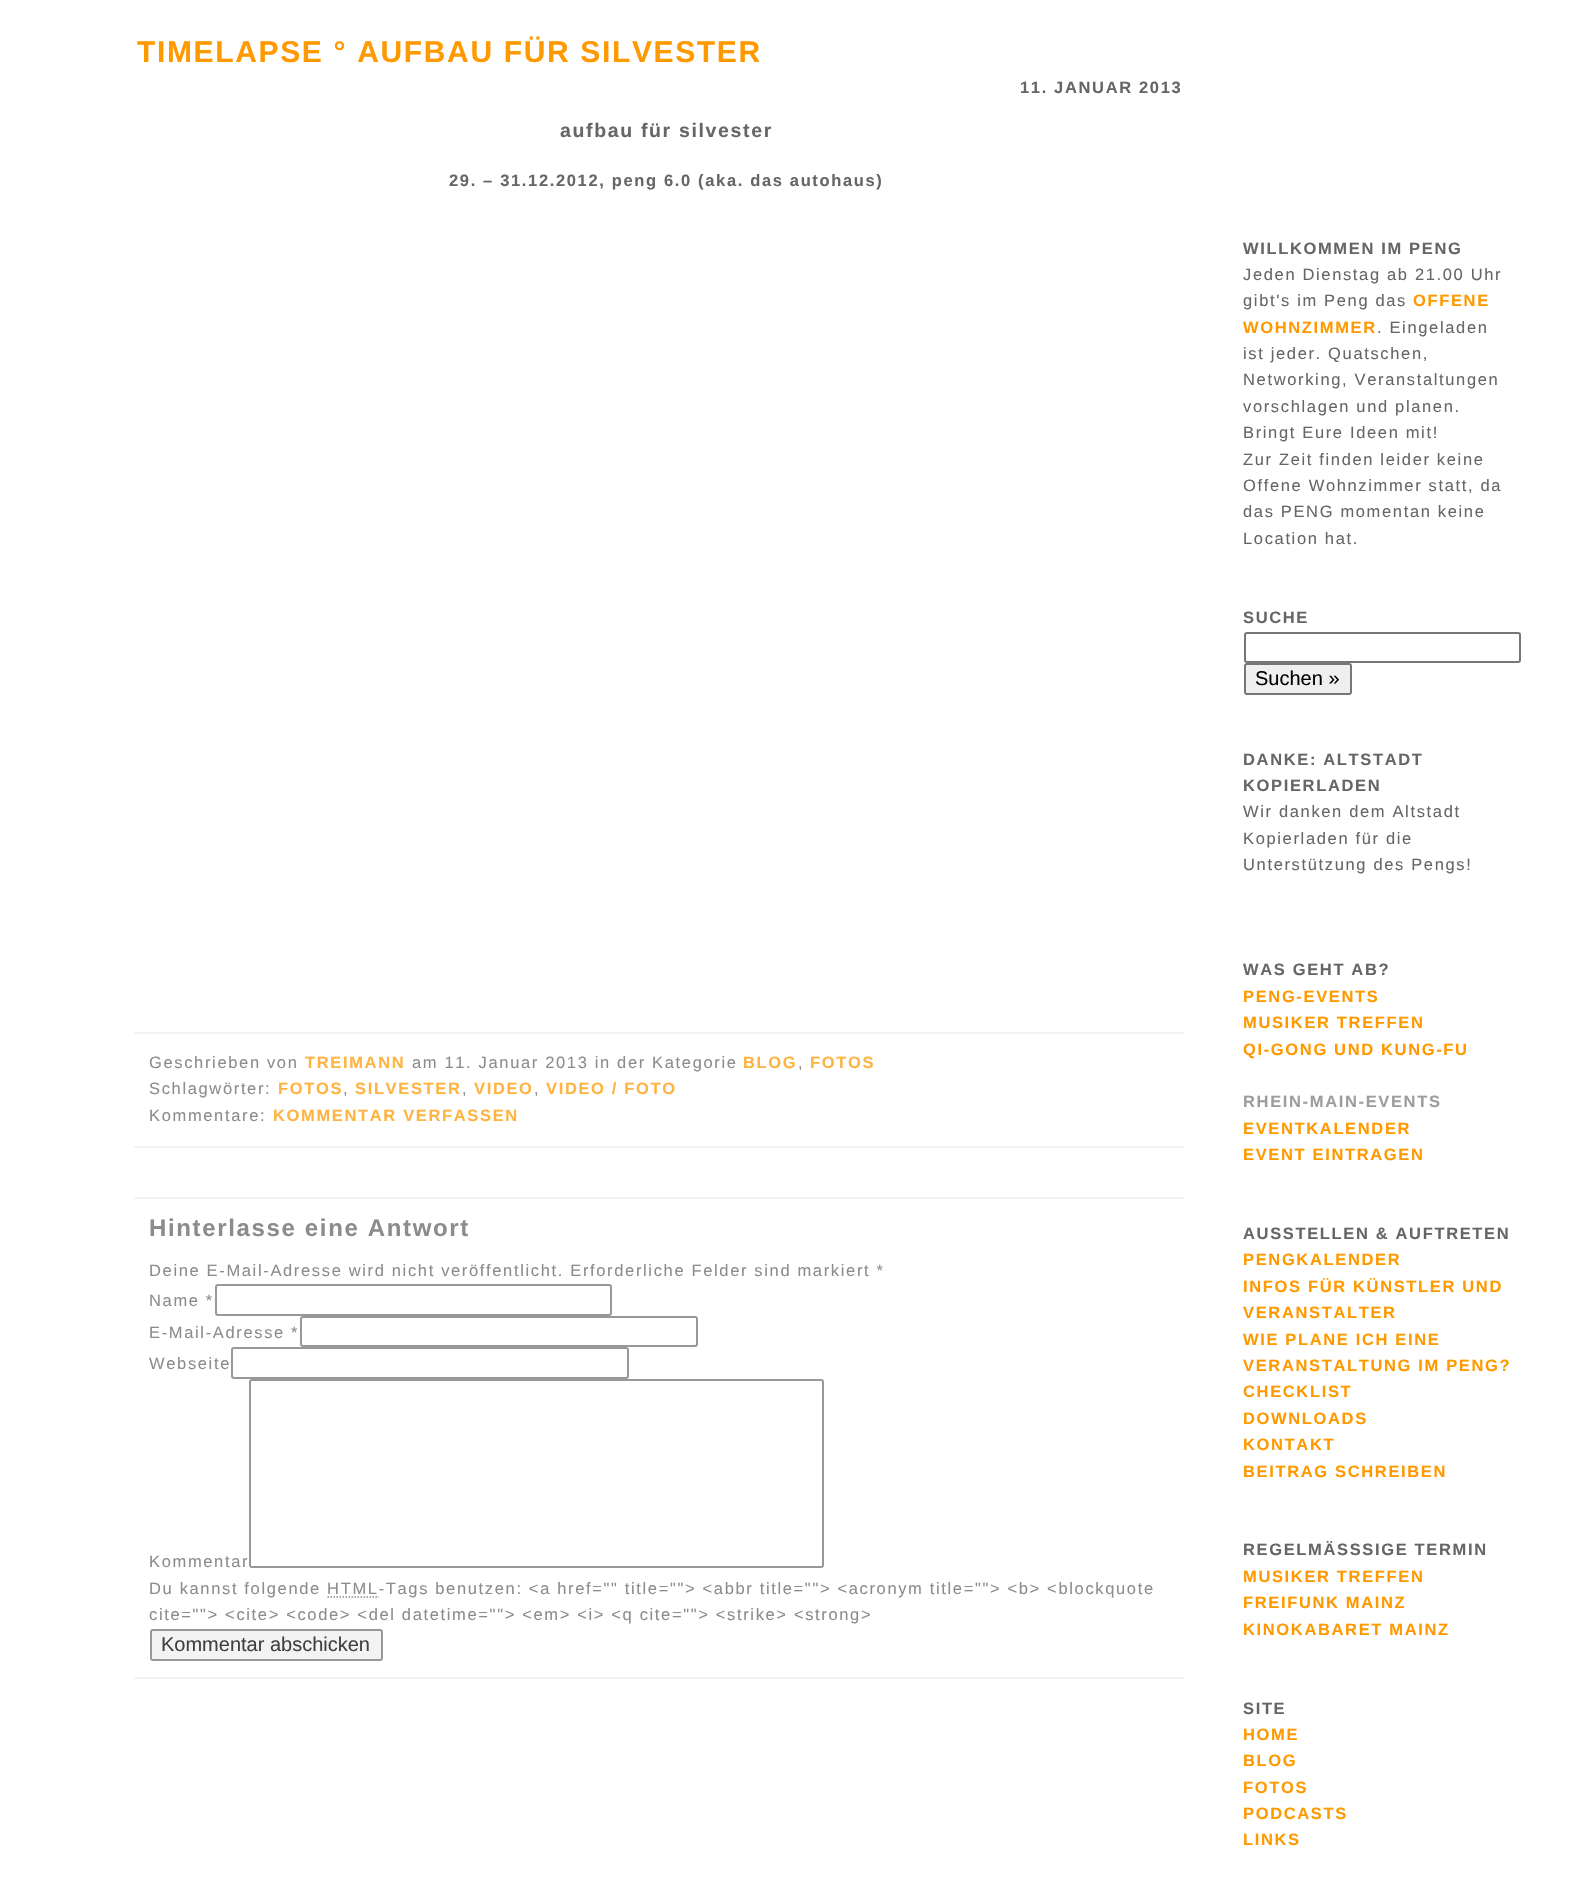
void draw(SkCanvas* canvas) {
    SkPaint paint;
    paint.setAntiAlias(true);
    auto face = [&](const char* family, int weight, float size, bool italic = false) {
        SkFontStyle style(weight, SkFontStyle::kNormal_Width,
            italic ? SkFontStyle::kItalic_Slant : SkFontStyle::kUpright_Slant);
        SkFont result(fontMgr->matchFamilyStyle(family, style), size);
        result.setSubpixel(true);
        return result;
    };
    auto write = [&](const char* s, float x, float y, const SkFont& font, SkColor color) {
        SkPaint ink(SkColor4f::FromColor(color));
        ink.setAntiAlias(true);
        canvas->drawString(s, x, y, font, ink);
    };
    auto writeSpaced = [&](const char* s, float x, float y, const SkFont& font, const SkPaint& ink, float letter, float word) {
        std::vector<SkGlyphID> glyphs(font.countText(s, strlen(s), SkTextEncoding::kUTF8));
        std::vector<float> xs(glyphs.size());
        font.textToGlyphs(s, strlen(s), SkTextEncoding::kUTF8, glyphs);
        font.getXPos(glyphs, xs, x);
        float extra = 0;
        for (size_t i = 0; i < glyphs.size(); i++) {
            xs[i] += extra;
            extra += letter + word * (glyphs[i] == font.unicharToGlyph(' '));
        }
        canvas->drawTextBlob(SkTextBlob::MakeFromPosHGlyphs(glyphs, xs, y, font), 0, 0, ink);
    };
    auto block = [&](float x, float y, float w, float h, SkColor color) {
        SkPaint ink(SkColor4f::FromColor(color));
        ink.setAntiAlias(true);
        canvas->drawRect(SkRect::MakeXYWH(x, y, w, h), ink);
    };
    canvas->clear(SK_ColorWHITE);
    auto kFont1 = face("Liberation Sans", 700, 30);
    paint.setColor(SkColorSetRGB(255, 153, 0));
    writeSpaced("TIMELAPSE ° AUFBAU FÜR SILVESTER", 137, 62, kFont1, paint, 1.65f, 0);
    auto kFont2 = face("Liberation Sans", 700, 16.5f);
    paint.setColor(SkColorSetRGB(102, 102, 102));
    writeSpaced("11. JANUAR 2013", 1020, 93, kFont2, paint, 1.65f, 0);
    auto kFont3 = face("Liberation Sans", 700, 19.5f);
    writeSpaced("aufbau für silvester", 560, 137, kFont3, paint, 1.65f, 0);
    writeSpaced("29. – 31.12.2012, peng 6.0 (aka. das autohaus)", 449, 186, kFont2, paint, 1.65f, 0);
    block(134, 1032, 1050, 2, SkColorSetRGB(243, 243, 243));
    block(134, 1146, 1050, 2, SkColorSetRGB(243, 243, 243));
    auto kFont4 = face("Liberation Sans", 400, 16.5f);
    paint.setColor(SkColorSetRGB(140, 140, 140));
    writeSpaced("Geschrieben von", 149, 1068, kFont4, paint, 1.65f, 0);
    paint.setColor(SkColorSetRGB(255, 179, 64));
    writeSpaced("TREIMANN", 305, 1068, kFont2, paint, 1.65f, 0);
    paint.setColor(SkColorSetRGB(140, 140, 140));
    writeSpaced("am 11. Januar 2013 in der Kategorie", 412, 1068, kFont4, paint, 1.65f, 0);
    paint.setColor(SkColorSetRGB(255, 179, 64));
    writeSpaced("BLOG", 743, 1068, kFont2, paint, 1.65f, 0);
    paint.setColor(SkColorSetRGB(140, 140, 140));
    writeSpaced(",", 798, 1068, kFont4, paint, 1.65f, 0);
    paint.setColor(SkColorSetRGB(255, 179, 64));
    writeSpaced("FOTOS", 810, 1068, kFont2, paint, 1.65f, 0);
    paint.setColor(SkColorSetRGB(140, 140, 140));
    writeSpaced("Schlagwörter:", 149, 1094, kFont4, paint, 1.65f, 0);
    paint.setColor(SkColorSetRGB(255, 179, 64));
    writeSpaced("FOTOS", 278, 1094, kFont2, paint, 1.65f, 0);
    paint.setColor(SkColorSetRGB(140, 140, 140));
    writeSpaced(",", 343, 1094, kFont4, paint, 1.65f, 0);
    paint.setColor(SkColorSetRGB(255, 179, 64));
    writeSpaced("SILVESTER", 355, 1094, kFont2, paint, 1.65f, 0);
    paint.setColor(SkColorSetRGB(140, 140, 140));
    writeSpaced(",", 462, 1094, kFont4, paint, 1.65f, 0);
    paint.setColor(SkColorSetRGB(255, 179, 64));
    writeSpaced("VIDEO", 474, 1094, kFont2, paint, 1.65f, 0);
    paint.setColor(SkColorSetRGB(140, 140, 140));
    writeSpaced(",", 534, 1094, kFont4, paint, 1.65f, 0);
    paint.setColor(SkColorSetRGB(255, 179, 64));
    writeSpaced("VIDEO / FOTO", 546, 1094, kFont2, paint, 1.65f, 0);
    paint.setColor(SkColorSetRGB(140, 140, 140));
    writeSpaced("Kommentare:", 149, 1121, kFont4, paint, 1.65f, 0);
    paint.setColor(SkColorSetRGB(255, 179, 64));
    writeSpaced("KOMMENTAR VERFASSEN", 273, 1121, kFont2, paint, 1.65f, 0);
    block(134, 1197, 1050, 2, SkColorSetRGB(243, 243, 243));
    block(134, 1677, 1050, 2, SkColorSetRGB(243, 243, 243));
    auto kFont5 = face("Liberation Sans", 700, 24);
    paint.setColor(SkColorSetRGB(140, 140, 140));
    writeSpaced("Hinterlasse eine Antwort", 149, 1236, kFont5, paint, 1.65f, 0);
    writeSpaced("Deine E-Mail-Adresse wird nicht veröffentlicht. Erforderliche Felder sind markiert *", 149, 1276, kFont4, paint, 1.65f, 0);
    writeSpaced("Name *", 149, 1306, kFont4, paint, 1.65f, 0);
    paint.setStyle(SkPaint::kStroke_Style);
    paint.setStrokeWidth(2);
    paint.setColor(SkColorSetRGB(152, 152, 152));
    canvas->drawRoundRect(SkRect::MakeXYWH(216, 1285, 395, 30), 2, 2, paint);
    paint.setStyle(SkPaint::kFill_Style);
    paint.setColor(SkColorSetRGB(140, 140, 140));
    writeSpaced("E-Mail-Adresse *", 149, 1338, kFont4, paint, 1.65f, 0);
    paint.setStyle(SkPaint::kStroke_Style);
    paint.setColor(SkColorSetRGB(152, 152, 152));
    canvas->drawRoundRect(SkRect::MakeXYWH(301, 1317, 396, 29), 2, 2, paint);
    paint.setStyle(SkPaint::kFill_Style);
    paint.setColor(SkColorSetRGB(140, 140, 140));
    writeSpaced("Webseite", 149, 1369, kFont4, paint, 1.65f, 0);
    paint.setStyle(SkPaint::kStroke_Style);
    paint.setColor(SkColorSetRGB(152, 152, 152));
    canvas->drawRoundRect(SkRect::MakeXYWH(232, 1348, 396, 30), 2, 2, paint);
    paint.setStyle(SkPaint::kFill_Style);
    paint.setColor(SkColorSetRGB(140, 140, 140));
    writeSpaced("Kommentar", 149, 1567, kFont4, paint, 1.65f, 0);
    paint.setStyle(SkPaint::kStroke_Style);
    paint.setColor(SkColorSetRGB(152, 152, 152));
    canvas->drawRoundRect(SkRect::MakeXYWH(250, 1380, 573, 187), 2, 2, paint);
    paint.setStyle(SkPaint::kFill_Style);
    paint.setColor(SkColorSetRGB(140, 140, 140));
    writeSpaced("Du kannst folgende HTML-Tags benutzen: <a href=\"\" title=\"\"> <abbr title=\"\"> <acronym title=\"\"> <b> <blockquote", 149, 1594, kFont4, paint, 1.65f, 0);
    paint.setStyle(SkPaint::kStroke_Style);
    paint.setStrokeWidth(1.5f);
    paint.setPathEffect(SkDashPathEffect::Make({{1.5f, 1.5f}}, 0));
    canvas->drawPath(SkPathBuilder().moveTo(327.5f, 1597).lineTo(379, 1597).detach(), paint);
    paint.setPathEffect(nullptr);
    paint.setStyle(SkPaint::kFill_Style);
    writeSpaced("cite=\"\"> <cite> <code> <del datetime=\"\"> <em> <i> <q cite=\"\"> <strike> <strong>", 149, 1620, kFont4, paint, 1.65f, 0);
    paint.setColor(SkColorSetRGB(243, 243, 243));
    canvas->drawRoundRect(SkRect::MakeXYWH(151, 1630, 231, 30), 2, 2, paint);
    paint.setStyle(SkPaint::kStroke_Style);
    paint.setStrokeWidth(2);
    paint.setColor(SkColorSetRGB(152, 152, 152));
    canvas->drawRoundRect(SkRect::MakeXYWH(151, 1630, 231, 30), 2, 2, paint);
    auto kFont6 = face("Liberation Sans", 400, 20);
    write("Kommentar abschicken", 161, 1651, kFont6, SkColorSetRGB(64, 64, 64));
    paint.setStyle(SkPaint::kFill_Style);
    paint.setColor(SkColorSetRGB(102, 102, 102));
    writeSpaced("WILLKOMMEN IM PENG", 1243, 254, kFont2, paint, 1.65f, 0);
    writeSpaced("Jeden Dienstag ab 21.00 Uhr", 1243, 280, kFont4, paint, 1.65f, 0);
    writeSpaced("gibt's im Peng das", 1243, 306, kFont4, paint, 1.65f, 0);
    paint.setColor(SkColorSetRGB(255, 153, 0));
    writeSpaced("OFFENE", 1413, 306, kFont2, paint, 1.65f, 0);
    writeSpaced("WOHNZIMMER", 1243, 333, kFont2, paint, 1.65f, 0);
    paint.setColor(SkColorSetRGB(102, 102, 102));
    writeSpaced(". Eingeladen", 1377, 333, kFont4, paint, 1.65f, 0);
    writeSpaced("ist jeder. Quatschen,", 1243, 359, kFont4, paint, 1.65f, 0);
    writeSpaced("Networking, Veranstaltungen", 1243, 385, kFont4, paint, 1.65f, 0);
    writeSpaced("vorschlagen und planen.", 1243, 412, kFont4, paint, 1.65f, 0);
    writeSpaced("Bringt Eure Ideen mit!", 1243, 438, kFont4, paint, 1.65f, 0);
    writeSpaced("Zur Zeit finden leider keine", 1243, 465, kFont4, paint, 1.65f, 0);
    writeSpaced("Offene Wohnzimmer statt, da", 1243, 491, kFont4, paint, 1.65f, 0);
    writeSpaced("das PENG momentan keine", 1243, 517, kFont4, paint, 1.65f, 0);
    writeSpaced("Location hat.", 1243, 544, kFont4, paint, 1.65f, 0);
    writeSpaced("SUCHE", 1243, 623, kFont2, paint, 1.65f, 0);
    paint.setStyle(SkPaint::kStroke_Style);
    paint.setColor(SkColorSetRGB(118, 118, 118));
    canvas->drawRoundRect(SkRect::MakeXYWH(1245, 633, 275, 29), 2, 2, paint);
    paint.setStyle(SkPaint::kFill_Style);
    paint.setColor(SkColorSetRGB(239, 239, 239));
    canvas->drawRoundRect(SkRect::MakeXYWH(1245, 664, 106, 30), 2, 2, paint);
    paint.setStyle(SkPaint::kStroke_Style);
    paint.setColor(SkColorSetRGB(118, 118, 118));
    canvas->drawRoundRect(SkRect::MakeXYWH(1245, 664, 106, 30), 2, 2, paint);
    write("Suchen »", 1255, 685, kFont6, SK_ColorBLACK);
    paint.setStyle(SkPaint::kFill_Style);
    paint.setColor(SkColorSetRGB(102, 102, 102));
    writeSpaced("DANKE: ALTSTADT", 1243, 765, kFont2, paint, 1.65f, 0);
    writeSpaced("KOPIERLADEN", 1243, 791, kFont2, paint, 1.65f, 0);
    writeSpaced("Wir danken dem Altstadt", 1243, 817, kFont4, paint, 1.65f, 0);
    writeSpaced("Kopierladen für die", 1243, 844, kFont4, paint, 1.65f, 0);
    writeSpaced("Unterstützung des Pengs!", 1243, 870, kFont4, paint, 1.65f, 0);
    writeSpaced("WAS GEHT AB?", 1243, 975, kFont2, paint, 1.65f, 0);
    paint.setColor(SkColorSetRGB(255, 153, 0));
    writeSpaced("PENG-EVENTS", 1243, 1002, kFont2, paint, 1.65f, 0);
    writeSpaced("MUSIKER TREFFEN", 1243, 1028, kFont2, paint, 1.65f, 0);
    writeSpaced("QI-GONG UND KUNG-FU", 1243, 1055, kFont2, paint, 1.65f, 0);
    paint.setColor(SkColorSetRGB(157, 157, 157));
    writeSpaced("RHEIN-MAIN-EVENTS", 1243, 1107, kFont2, paint, 1.65f, 0);
    paint.setColor(SkColorSetRGB(255, 153, 0));
    writeSpaced("EVENTKALENDER", 1243, 1134, kFont2, paint, 1.65f, 0);
    writeSpaced("EVENT EINTRAGEN", 1243, 1160, kFont2, paint, 1.65f, 0);
    paint.setColor(SkColorSetRGB(102, 102, 102));
    writeSpaced("AUSSTELLEN & AUFTRETEN", 1243, 1239, kFont2, paint, 1.65f, 0);
    paint.setColor(SkColorSetRGB(255, 153, 0));
    writeSpaced("PENGKALENDER", 1243, 1265, kFont2, paint, 1.65f, 0);
    writeSpaced("INFOS FÜR KÜNSTLER UND", 1243, 1292, kFont2, paint, 1.65f, 0);
    writeSpaced("VERANSTALTER", 1243, 1318, kFont2, paint, 1.65f, 0);
    writeSpaced("WIE PLANE ICH EINE", 1243, 1345, kFont2, paint, 1.65f, 0);
    writeSpaced("VERANSTALTUNG IM PENG?", 1243, 1371, kFont2, paint, 1.65f, 0);
    writeSpaced("CHECKLIST", 1243, 1397, kFont2, paint, 1.65f, 0);
    writeSpaced("DOWNLOADS", 1243, 1424, kFont2, paint, 1.65f, 0);
    writeSpaced("KONTAKT", 1243, 1450, kFont2, paint, 1.65f, 0);
    writeSpaced("BEITRAG SCHREIBEN", 1243, 1477, kFont2, paint, 1.65f, 0);
    paint.setColor(SkColorSetRGB(102, 102, 102));
    writeSpaced("REGELMÄSSSIGE TERMIN", 1243, 1555, kFont2, paint, 1.65f, 0);
    paint.setColor(SkColorSetRGB(255, 153, 0));
    writeSpaced("MUSIKER TREFFEN", 1243, 1582, kFont2, paint, 1.65f, 0);
    writeSpaced("FREIFUNK MAINZ", 1243, 1608, kFont2, paint, 1.65f, 0);
    writeSpaced("KINOKABARET MAINZ", 1243, 1635, kFont2, paint, 1.65f, 0);
    paint.setColor(SkColorSetRGB(102, 102, 102));
    writeSpaced("SITE", 1243, 1714, kFont2, paint, 1.65f, 0);
    paint.setColor(SkColorSetRGB(255, 153, 0));
    writeSpaced("HOME", 1243, 1740, kFont2, paint, 1.65f, 0);
    writeSpaced("BLOG", 1243, 1766, kFont2, paint, 1.65f, 0);
    writeSpaced("FOTOS", 1243, 1793, kFont2, paint, 1.65f, 0);
    writeSpaced("PODCASTS", 1243, 1819, kFont2, paint, 1.65f, 0);
    writeSpaced("LINKS", 1243, 1845, kFont2, paint, 1.65f, 0);
}
